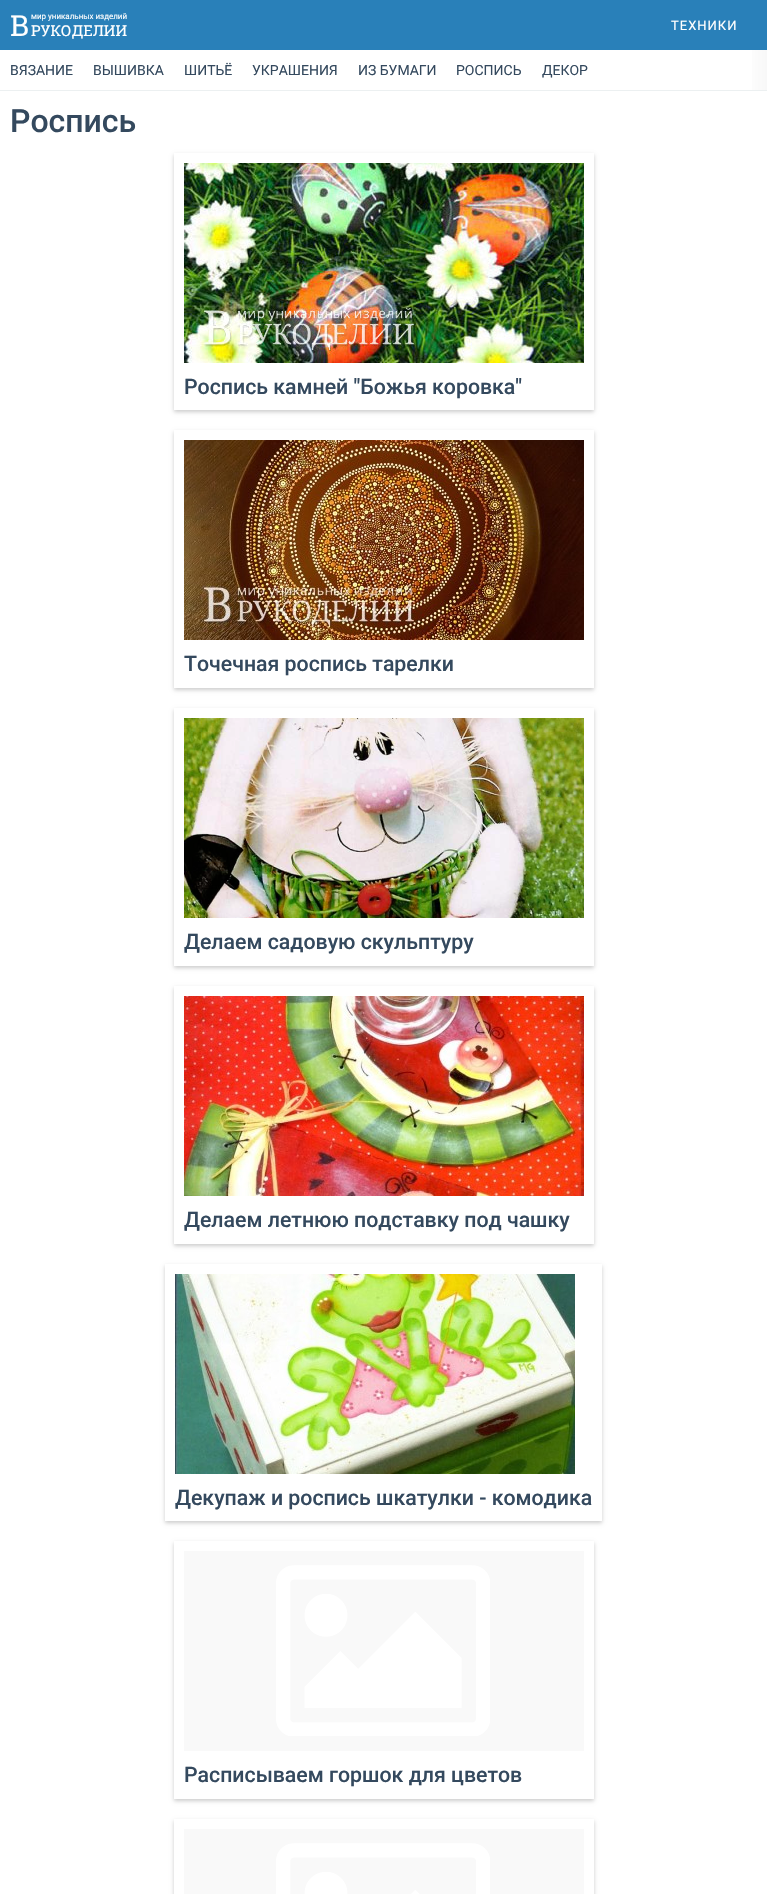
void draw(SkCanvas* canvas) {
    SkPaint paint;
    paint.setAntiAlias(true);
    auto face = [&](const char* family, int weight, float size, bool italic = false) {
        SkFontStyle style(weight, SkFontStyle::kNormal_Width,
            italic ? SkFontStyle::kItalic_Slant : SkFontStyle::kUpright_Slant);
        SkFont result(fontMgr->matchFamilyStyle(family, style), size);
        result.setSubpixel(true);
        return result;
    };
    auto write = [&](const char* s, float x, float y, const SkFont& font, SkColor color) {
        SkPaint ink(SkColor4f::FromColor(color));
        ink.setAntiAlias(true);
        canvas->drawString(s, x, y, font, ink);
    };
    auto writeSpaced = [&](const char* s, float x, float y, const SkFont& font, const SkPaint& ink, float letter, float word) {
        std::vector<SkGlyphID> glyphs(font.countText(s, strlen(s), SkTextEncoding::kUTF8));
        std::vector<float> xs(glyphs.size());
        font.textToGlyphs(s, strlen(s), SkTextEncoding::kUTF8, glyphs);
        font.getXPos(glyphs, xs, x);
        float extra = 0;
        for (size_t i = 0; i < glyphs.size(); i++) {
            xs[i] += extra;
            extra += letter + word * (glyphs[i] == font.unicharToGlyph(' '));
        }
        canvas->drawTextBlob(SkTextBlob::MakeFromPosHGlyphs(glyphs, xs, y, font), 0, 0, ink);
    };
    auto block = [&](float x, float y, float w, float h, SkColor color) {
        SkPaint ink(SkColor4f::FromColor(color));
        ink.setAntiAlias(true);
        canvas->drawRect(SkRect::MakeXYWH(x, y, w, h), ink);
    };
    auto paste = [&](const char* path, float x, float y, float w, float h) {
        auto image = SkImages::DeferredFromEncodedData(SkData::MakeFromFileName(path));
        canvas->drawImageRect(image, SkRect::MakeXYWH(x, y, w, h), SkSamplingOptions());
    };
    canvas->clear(SK_ColorWHITE);
    block(0, 0, 767, 50, SkColorSetRGB(41, 128, 185));
    auto kFont1 = face("Roboto Slab", 400, 29);
    write("В", 10, 36, kFont1, SK_ColorWHITE);
    auto kFont2 = face("Roboto", 400, 8);
    write("мир уникальных изделий", 31, 19, kFont2, SK_ColorWHITE);
    auto kFont3 = face("Roboto Slab", 400, 15);
    write("РУКОДЕЛИИ", 31, 36, kFont3, SK_ColorWHITE);
    auto kFont4 = face("Roboto", 400, 13);
    paint.setColor(SK_ColorWHITE);
    writeSpaced("ТЕХНИКИ", 671, 30, kFont4, paint, 1, 0);
    block(0, 90, 767, 1, SkColorSetRGB(236, 240, 241));
    auto kFont5 = face("Roboto", 400, 14);
    write("ВЯЗАНИЕ", 10, 75, kFont5, SkColorSetRGB(52, 73, 94));
    write("ВЫШИВКА", 93, 75, kFont5, SkColorSetRGB(52, 73, 94));
    write("ШИТЬЁ", 184, 75, kFont5, SkColorSetRGB(52, 73, 94));
    write("УКРАШЕНИЯ", 252, 75, kFont5, SkColorSetRGB(52, 73, 94));
    write("ИЗ БУМАГИ", 358, 75, kFont5, SkColorSetRGB(52, 73, 94));
    write("РОСПИСЬ", 456, 75, kFont5, SkColorSetRGB(52, 73, 94));
    write("ДЕКОР", 542, 75, kFont5, SkColorSetRGB(52, 73, 94));
    {
        const SkColor colors[] = {SK_ColorWHITE, SkColorSetRGB(248, 248, 248)};
        const float stops[] = {0, 1};
        const SkPoint ends[] = {{743, 50}, {767, 50}};
        paint.setShader(SkGradientShader::MakeLinear(ends, colors, stops, 2, SkTileMode::kClamp));
        paint.setAlpha(255);
    }
    canvas->drawRect(SkRect::MakeXYWH(752, 50, 15, 40), paint);
    auto kFont6 = face("Roboto", 500, 32);
    write("Роспись", 10, 132, kFont6, SkColorSetRGB(52, 73, 94));
    canvas->save();
    canvas->clipPath(SkPathBuilder(SkPathFillType::kEvenOdd).moveTo(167, 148).lineTo(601, 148).lineTo(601, 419).lineTo(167, 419).close().moveTo(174, 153).lineTo(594, 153).lineTo(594, 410).lineTo(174, 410).close().detach(), true);
    paint.setShader(nullptr);
    paint.setColor(SkColorSetARGB(51, 0, 0, 0));
    paint.setMaskFilter(SkMaskFilter::MakeBlur(kNormal_SkBlurStyle, 2));
    canvas->drawRect(SkRect::MakeXYWH(174, 155, 420, 257), paint);
    paint.setMaskFilter(nullptr);
    canvas->restore();
    paste("pic1.png", 184, 163, 400, 200);
    auto kFont7 = face("Roboto", 500, 21.3f);
    write("Роспись камней \"Божья коровка\"", 184, 394, kFont7, SkColorSetRGB(52, 73, 94));
    canvas->save();
    canvas->clipPath(SkPathBuilder(SkPathFillType::kEvenOdd).moveTo(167, 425).lineTo(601, 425).lineTo(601, 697).lineTo(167, 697).close().moveTo(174, 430).lineTo(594, 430).lineTo(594, 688).lineTo(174, 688).close().detach(), true);
    paint.setMaskFilter(SkMaskFilter::MakeBlur(kNormal_SkBlurStyle, 2));
    canvas->drawRect(SkRect::MakeXYWH(174, 432, 420, 258), paint);
    paint.setMaskFilter(nullptr);
    canvas->restore();
    paste("pic2.png", 184, 440, 400, 200);
    write("Точечная роспись тарелки", 184, 671, kFont7, SkColorSetRGB(52, 73, 94));
    canvas->save();
    canvas->clipPath(SkPathBuilder(SkPathFillType::kEvenOdd).moveTo(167, 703).lineTo(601, 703).lineTo(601, 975).lineTo(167, 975).close().moveTo(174, 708).lineTo(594, 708).lineTo(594, 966).lineTo(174, 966).close().detach(), true);
    paint.setMaskFilter(SkMaskFilter::MakeBlur(kNormal_SkBlurStyle, 2));
    canvas->drawRect(SkRect::MakeXYWH(174, 710, 420, 258), paint);
    paint.setMaskFilter(nullptr);
    canvas->restore();
    paste("pic3.png", 184, 718, 400, 200);
    write("Делаем садовую скульптуру", 184, 949, kFont7, SkColorSetRGB(52, 73, 94));
    canvas->save();
    canvas->clipPath(SkPathBuilder(SkPathFillType::kEvenOdd).moveTo(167, 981).lineTo(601, 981).lineTo(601, 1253).lineTo(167, 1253).close().moveTo(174, 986).lineTo(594, 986).lineTo(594, 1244).lineTo(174, 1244).close().detach(), true);
    paint.setMaskFilter(SkMaskFilter::MakeBlur(kNormal_SkBlurStyle, 2));
    canvas->drawRect(SkRect::MakeXYWH(174, 988, 420, 258), paint);
    paint.setMaskFilter(nullptr);
    canvas->restore();
    paste("pic4.png", 184, 996, 400, 200);
    write("Делаем летнюю подставку под чашку", 184, 1227, kFont7, SkColorSetRGB(52, 73, 94));
    canvas->save();
    canvas->clipPath(SkPathBuilder(SkPathFillType::kEvenOdd).moveTo(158, 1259).lineTo(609, 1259).lineTo(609, 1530).lineTo(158, 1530).close().moveTo(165, 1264).lineTo(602, 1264).lineTo(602, 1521).lineTo(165, 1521).close().detach(), true);
    paint.setMaskFilter(SkMaskFilter::MakeBlur(kNormal_SkBlurStyle, 2));
    canvas->drawRect(SkRect::MakeXYWH(165, 1266, 437, 257), paint);
    paint.setMaskFilter(nullptr);
    canvas->restore();
    paste("pic5.png", 175, 1274, 400, 200);
    write("Декупаж и роспись шкатулки - комодика", 175, 1505, kFont7, SkColorSetRGB(52, 73, 94));
    canvas->save();
    canvas->clipPath(SkPathBuilder(SkPathFillType::kEvenOdd).moveTo(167, 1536).lineTo(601, 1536).lineTo(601, 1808).lineTo(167, 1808).close().moveTo(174, 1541).lineTo(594, 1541).lineTo(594, 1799).lineTo(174, 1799).close().detach(), true);
    paint.setMaskFilter(SkMaskFilter::MakeBlur(kNormal_SkBlurStyle, 2));
    canvas->drawRect(SkRect::MakeXYWH(174, 1543, 420, 258), paint);
    paint.setMaskFilter(nullptr);
    canvas->restore();
    block(184, 1551, 400, 200, SkColorSetRGB(249, 249, 249));
    paste("pic6.png", 276, 1565, 214, 171);
    write("Расписываем горшок для цветов", 184, 1782, kFont7, SkColorSetRGB(52, 73, 94));
    canvas->save();
    canvas->clipPath(SkPathBuilder(SkPathFillType::kEvenOdd).moveTo(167, 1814).lineTo(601, 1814).lineTo(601, 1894).lineTo(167, 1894).close().moveTo(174, 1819).lineTo(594, 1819).lineTo(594, 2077).lineTo(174, 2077).close().detach(), true);
    paint.setMaskFilter(SkMaskFilter::MakeBlur(kNormal_SkBlurStyle, 2));
    canvas->drawRect(SkRect::MakeXYWH(174, 1821, 420, 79), paint);
    paint.setMaskFilter(nullptr);
    canvas->restore();
    block(184, 1829, 400, 65, SkColorSetRGB(249, 249, 249));
    paste("pic7.png", 276, 1843, 214, 51);
}
